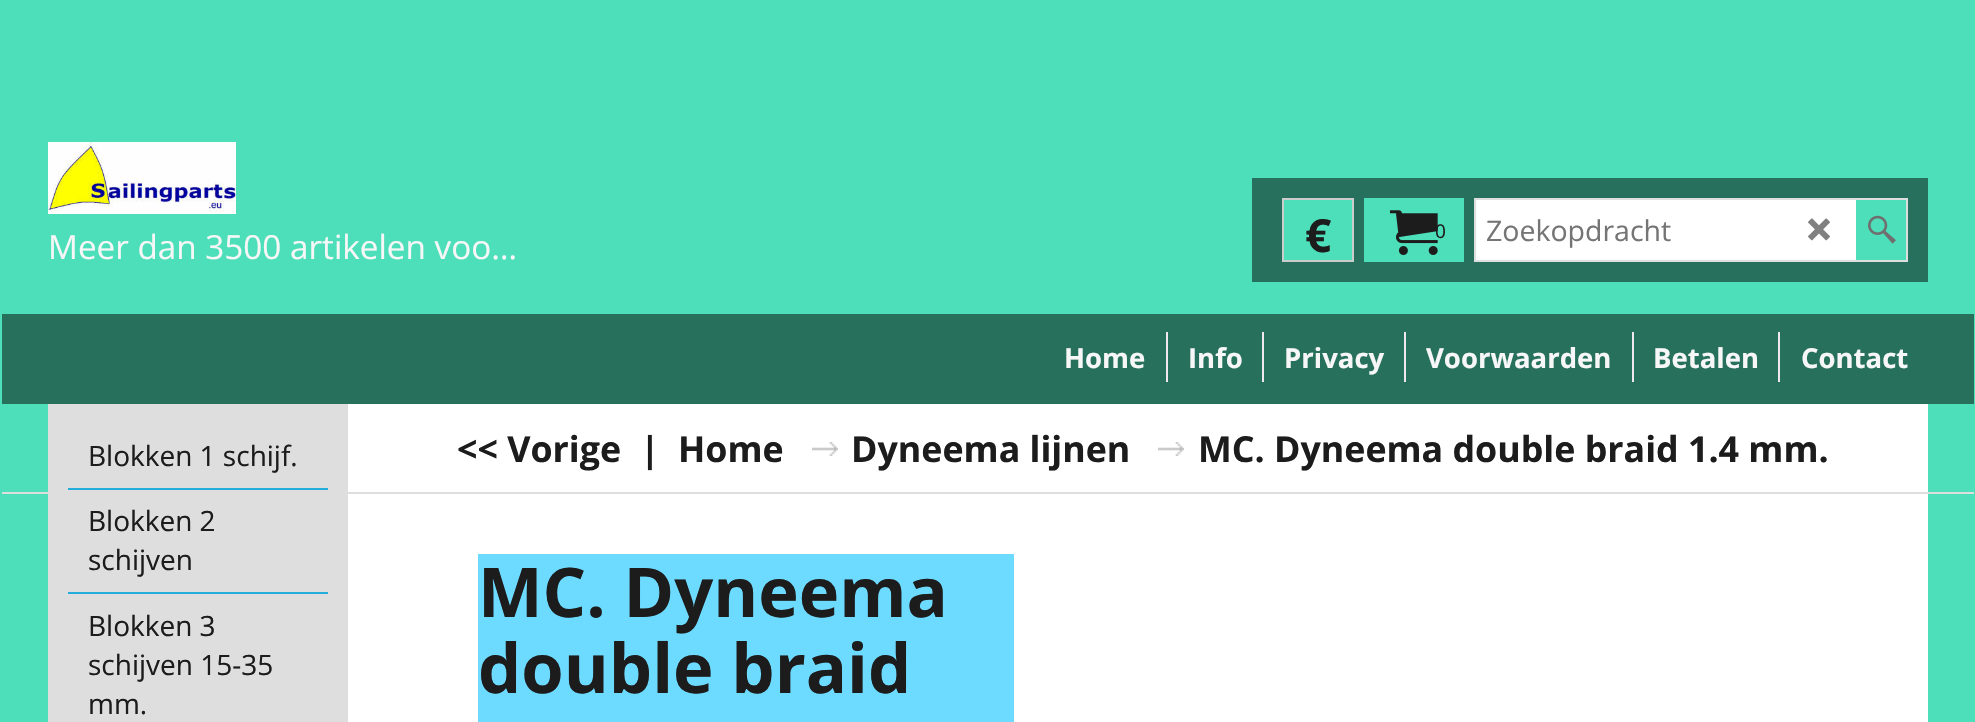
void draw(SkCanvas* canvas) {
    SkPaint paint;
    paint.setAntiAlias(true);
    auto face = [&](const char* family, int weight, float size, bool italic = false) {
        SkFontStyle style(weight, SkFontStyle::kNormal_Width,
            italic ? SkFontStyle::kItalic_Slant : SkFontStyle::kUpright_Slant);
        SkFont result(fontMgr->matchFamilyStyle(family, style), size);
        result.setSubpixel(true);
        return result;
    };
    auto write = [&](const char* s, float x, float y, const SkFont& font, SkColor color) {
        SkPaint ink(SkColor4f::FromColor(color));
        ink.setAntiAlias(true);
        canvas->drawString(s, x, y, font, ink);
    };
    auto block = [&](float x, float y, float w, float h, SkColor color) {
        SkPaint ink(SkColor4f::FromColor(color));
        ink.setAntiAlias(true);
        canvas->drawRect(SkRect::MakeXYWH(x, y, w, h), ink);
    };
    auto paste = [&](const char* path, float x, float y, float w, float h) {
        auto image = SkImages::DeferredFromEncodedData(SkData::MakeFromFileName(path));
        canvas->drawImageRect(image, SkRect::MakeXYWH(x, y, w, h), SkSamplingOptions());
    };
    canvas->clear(SkColorSetRGB(76, 223, 185));
    paste("pic1.png", 48, 142, 188, 72);
    auto kFont1 = face("Open Sans", 400, 33.25f);
    write("Meer dan 3500 artikelen voo…", 48, 259, kFont1, SkColorSetRGB(247, 247, 247));
    block(1252, 178, 676, 104, SkColorSetRGB(38, 112, 93));
    paint.setColor(SkColorSetRGB(76, 223, 185));
    canvas->drawRect(SkRect::MakeXYWH(1283, 199, 70, 62), paint);
    paint.setStyle(SkPaint::kStroke_Style);
    paint.setStrokeWidth(2);
    paint.setColor(SkColorSetRGB(204, 204, 204));
    canvas->drawRect(SkRect::MakeXYWH(1283, 199, 70, 62), paint);
    auto kFont2 = face("Open Sans", 700, 46);
    write("€", 1305, 252, kFont2, SkColorSetRGB(28, 28, 28));
    block(1364, 198, 100, 64, SkColorSetRGB(76, 223, 185));
    paste("pic2.png", 1390, 210, 48, 45);
    auto kFont3 = face("Open Sans", 400, 19);
    write("0", 1435, 238, kFont3, SkColorSetRGB(28, 28, 28));
    block(1474, 198, 434, 64, SkColorSetRGB(222, 222, 222));
    block(1476, 200, 380, 60, SK_ColorWHITE);
    auto kFont4 = face("Open Sans", 400, 28.5f);
    write("Zoekopdracht", 1486, 241, kFont4, SkColorSetRGB(117, 117, 117));
    paste("pic3.png", 1808, 218, 22, 23);
    block(1856, 200, 50, 60, SkColorSetRGB(76, 223, 185));
    paste("pic4.png", 1868, 215, 28, 29);
    block(348, 404, 1580, 318, SK_ColorWHITE);
    block(48, 404, 300, 318, SkColorSetRGB(222, 222, 222));
    block(68, 488, 260, 2, SkColorSetRGB(36, 172, 218));
    canvas->save();
    canvas->clipRect(SkRect::MakeXYWH(2, 2, 1972, 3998));
    paint.setColor(SkColorSetRGB(222, 222, 222));
    canvas->drawRect(SkRect::MakeXYWH(-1, 403, 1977, 90), paint);
    canvas->restore();
    block(2, 314, 1972, 90, SkColorSetRGB(38, 112, 92));
    auto kFont5 = face("Open Sans", 700, 27.5f);
    write("Home", 1064, 368, kFont5, SkColorSetRGB(247, 247, 247));
    block(1166, 332, 2, 50, SkColorSetRGB(239, 233, 239));
    write("Info", 1188, 368, kFont5, SkColorSetRGB(247, 247, 247));
    block(1262, 332, 2, 50, SkColorSetRGB(239, 233, 239));
    write("Privacy", 1284, 368, kFont5, SkColorSetRGB(247, 247, 247));
    block(1404, 332, 2, 50, SkColorSetRGB(239, 233, 239));
    write("Voorwaarden", 1426, 368, kFont5, SkColorSetRGB(247, 247, 247));
    block(1632, 332, 2, 50, SkColorSetRGB(239, 233, 239));
    write("Betalen", 1653, 368, kFont5, SkColorSetRGB(247, 247, 247));
    block(1778, 332, 2, 50, SkColorSetRGB(239, 233, 239));
    write("Contact", 1801, 368, kFont5, SkColorSetRGB(247, 247, 247));
    auto kFont6 = face("Open Sans", 400, 28);
    write("Blokken 1 schijf.", 88, 466, kFont6, SkColorSetRGB(28, 28, 28));
    block(68, 592, 260, 2, SkColorSetRGB(36, 172, 218));
    write("Blokken 2", 88, 531, kFont6, SkColorSetRGB(28, 28, 28));
    write("schijven", 88, 570, kFont6, SkColorSetRGB(28, 28, 28));
    write("Blokken 3", 88, 636, kFont6, SkColorSetRGB(28, 28, 28));
    write("schijven 15-35", 88, 675, kFont6, SkColorSetRGB(28, 28, 28));
    write("mm.", 88, 714, kFont6, SkColorSetRGB(28, 28, 28));
    auto kFont7 = face("Open Sans", 700, 35.75f);
    write("<< Vorige", 457, 462, kFont7, SkColorSetRGB(28, 28, 28));
    write("|", 640, 462, kFont7, SkColorSetRGB(28, 28, 28));
    write("Home", 678, 462, kFont7, SkColorSetRGB(28, 28, 28));
    paste("pic5.png", 812, 442, 26, 14);
    write("Dyneema lijnen", 851, 462, kFont7, SkColorSetRGB(28, 28, 28));
    paste("pic5.png", 1158, 442, 26, 14);
    write("MC. Dyneema double braid 1.4 mm.", 1198, 462, kFont7, SkColorSetRGB(28, 28, 28));
    block(478, 554, 536, 168, SkColorSetRGB(109, 218, 255));
    auto kFont8 = face("Open Sans", 700, 68.5f);
    write("MC. Dyneema", 478, 617, kFont8, SkColorSetRGB(28, 28, 28));
    write("double braid", 478, 693, kFont8, SkColorSetRGB(28, 28, 28));
}
